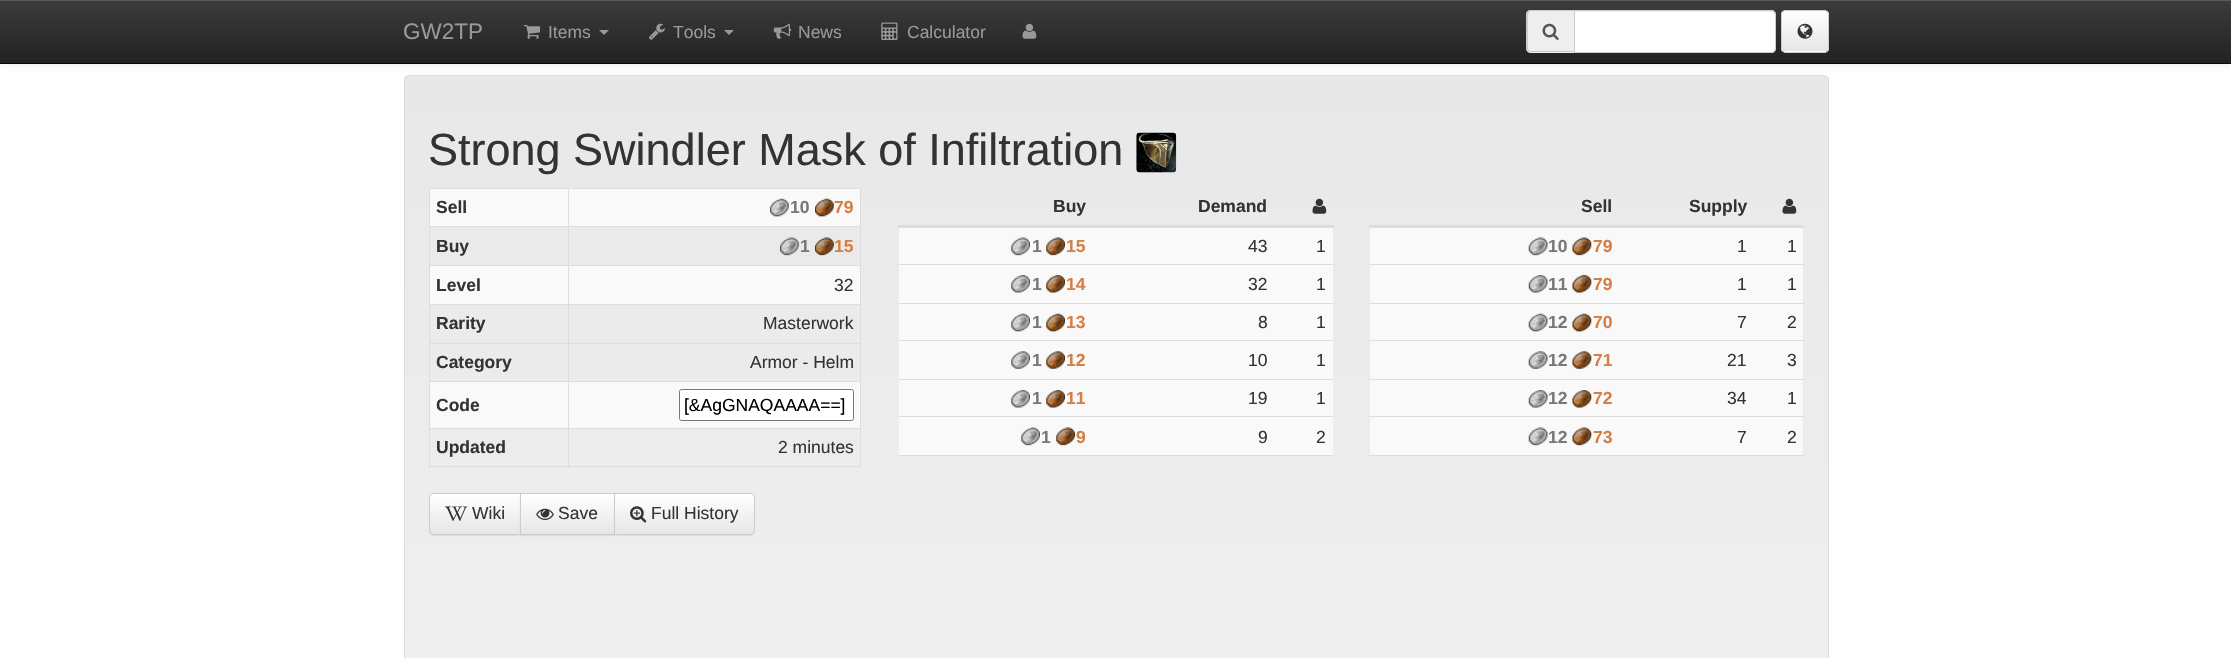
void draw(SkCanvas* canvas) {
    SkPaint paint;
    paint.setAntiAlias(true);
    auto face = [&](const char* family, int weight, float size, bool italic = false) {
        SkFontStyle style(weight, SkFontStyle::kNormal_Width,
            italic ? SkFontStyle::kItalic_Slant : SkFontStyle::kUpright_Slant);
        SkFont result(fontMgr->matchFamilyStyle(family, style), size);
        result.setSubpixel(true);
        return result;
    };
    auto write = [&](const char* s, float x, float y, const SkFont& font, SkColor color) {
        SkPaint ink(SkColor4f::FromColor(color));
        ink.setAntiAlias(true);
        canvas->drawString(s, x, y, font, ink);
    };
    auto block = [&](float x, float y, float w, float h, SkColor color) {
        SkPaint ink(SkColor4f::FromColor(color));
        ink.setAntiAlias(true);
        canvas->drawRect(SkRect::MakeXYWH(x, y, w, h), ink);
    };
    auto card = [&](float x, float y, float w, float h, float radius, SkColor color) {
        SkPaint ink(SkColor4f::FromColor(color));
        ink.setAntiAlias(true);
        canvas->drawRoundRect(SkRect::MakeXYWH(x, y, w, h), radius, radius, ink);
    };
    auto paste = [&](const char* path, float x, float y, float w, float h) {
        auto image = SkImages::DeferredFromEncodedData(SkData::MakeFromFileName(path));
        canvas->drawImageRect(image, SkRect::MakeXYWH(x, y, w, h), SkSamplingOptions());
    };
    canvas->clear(SK_ColorWHITE);
    paint.setColor(SkColorSetARGB(18, 0, 0, 0));
    paint.setMaskFilter(SkMaskFilter::MakeBlur(kNormal_SkBlurStyle, 3));
    canvas->drawRect(SkRect::MakeXYWH(0, 1, 2231, 64), paint);
    paint.setMaskFilter(nullptr);
    {
        const SkColor colors[] = {SkColorSetRGB(60, 60, 60), SkColorSetRGB(34, 34, 34)};
        const float stops[] = {0, 1};
        const SkPoint ends[] = {{1116, 0}, {1116, 63}};
        paint.setShader(SkGradientShader::MakeLinear(ends, colors, stops, 2, SkTileMode::kClamp));
        paint.setAlpha(255);
    }
    canvas->drawRect(SkRect::MakeXYWH(0, 1, 2231, 62), paint);
    block(0, 0, 2231, 1, SkColorSetRGB(89, 89, 89));
    block(0, 63, 2231, 1, SkColorSetRGB(8, 8, 8));
    auto kFont1 = face("Liberation Sans", 400, 22.5f);
    write("GW2TP", 403, 39, kFont1, SkColorSetRGB(153, 153, 153));
    paste("pic1.png", 523, 25, 17, 14);
    auto kFont2 = face("Liberation Sans", 400, 17.5f);
    write("Items", 548, 38, kFont2, SkColorSetRGB(153, 153, 153));
    paint.setShader(nullptr);
    paint.setColor(SkColorSetRGB(153, 153, 153));
    canvas->drawPath(SkPathBuilder().moveTo(599, 30).lineTo(609, 30).lineTo(604, 35).close().detach(), paint);
    paste("pic2.png", 649, 23, 16, 17);
    write("Tools", 673, 38, kFont2, SkColorSetRGB(153, 153, 153));
    canvas->drawPath(SkPathBuilder().moveTo(724, 30).lineTo(734, 30).lineTo(729, 35).close().detach(), paint);
    paste("pic3.png", 773, 23, 19, 16);
    write("News", 798, 38, kFont2, SkColorSetRGB(153, 153, 153));
    paste("pic4.png", 881, 22, 17, 18);
    write("Calculator", 907, 38, kFont2, SkColorSetRGB(153, 153, 153));
    paste("pic5.png", 1022, 23, 15, 16);
    paint.setColor(SkColorSetRGB(238, 238, 238));
    canvas->drawPath(SkPathBuilder().moveTo(1531, 10).lineTo(1574, 10).lineTo(1574, 53).lineTo(1531, 53).cubicTo(1528, 53, 1526, 51, 1526, 48).lineTo(1526, 15).cubicTo(1526, 12, 1528, 10, 1531, 10).close().detach(), paint);
    paint.setColor(SkColorSetRGB(204, 204, 204));
    canvas->drawPath(SkPathBuilder(SkPathFillType::kEvenOdd).moveTo(1531, 10).lineTo(1574, 10).lineTo(1574, 52).lineTo(1531, 52).cubicTo(1528, 52, 1526, 50, 1526, 48).lineTo(1526, 15).cubicTo(1526, 12, 1528, 10, 1531, 10).close().moveTo(1531, 11).lineTo(1574, 11).lineTo(1574, 51).lineTo(1531, 51).cubicTo(1529, 51, 1528, 50, 1528, 48).lineTo(1528, 15).cubicTo(1528, 13, 1529, 11, 1531, 11).close().detach(), paint);
    paste("pic6.png", 1542, 23, 17, 17);
    paint.setColor(SK_ColorWHITE);
    canvas->drawPath(SkPathBuilder().moveTo(1574, 10).lineTo(1771, 10).cubicTo(1774, 10, 1776, 12, 1776, 15).lineTo(1776, 48).cubicTo(1776, 51, 1774, 53, 1771, 53).lineTo(1574, 53).close().detach(), paint);
    paint.setColor(SkColorSetRGB(236, 236, 236));
    canvas->drawPath(SkPathBuilder().moveTo(1575, 12).lineTo(1771, 12).cubicTo(1773, 12, 1775, 14, 1775, 16).cubicTo(1775, 13, 1774, 11, 1771, 11).lineTo(1575, 11).close().detach(), paint);
    paint.setStyle(SkPaint::kStroke_Style);
    paint.setStrokeWidth(1);
    paint.setColor(SkColorSetRGB(204, 204, 204));
    canvas->drawPath(SkPathBuilder().moveTo(1574.5f, 10.5f).lineTo(1771, 10.5f).cubicTo(1773.5f, 10.5f, 1775.5f, 12.5f, 1775.5f, 15).lineTo(1775.5f, 48).cubicTo(1775.5f, 50.5f, 1773.5f, 52.5f, 1771, 52.5f).lineTo(1574.5f, 52.5f).close().detach(), paint);
    card(1781, 10, 48, 43, 5, SK_ColorWHITE);
    canvas->save();
    canvas->clipPath(SkPathBuilder().moveTo(1786, 10).lineTo(1824, 10).cubicTo(1827, 10, 1829, 12, 1829, 15).lineTo(1829, 48).cubicTo(1829, 51, 1827, 53, 1824, 53).lineTo(1786, 53).cubicTo(1783, 53, 1781, 51, 1781, 48).lineTo(1781, 15).cubicTo(1781, 12, 1783, 10, 1786, 10).close().detach(), true);
    paint.setStyle(SkPaint::kFill_Style);
    {
        const SkColor colors[] = {SK_ColorWHITE, SkColorSetRGB(230, 230, 230)};
        const float stops[] = {0, 1};
        const SkPoint ends[] = {{1805, 11}, {1805, 51}};
        paint.setShader(SkGradientShader::MakeLinear(ends, colors, stops, 2, SkTileMode::kClamp));
        paint.setAlpha(255);
    }
    canvas->drawRect(SkRect::MakeXYWH(1781, 11, 48, 40), paint);
    canvas->restore();
    paint.setStyle(SkPaint::kStroke_Style);
    paint.setShader(nullptr);
    paint.setColor(SkColorSetRGB(204, 204, 204));
    canvas->drawRoundRect(SkRect::MakeXYWH(1781.5f, 10.5f, 47, 42), 4.5f, 4.5f, paint);
    paste("pic7.png", 1797, 23, 16, 16);
    canvas->save();
    canvas->clipPath(SkPathBuilder().moveTo(409, 75).lineTo(1824, 75).cubicTo(1827, 75, 1829, 77, 1829, 80).lineTo(1829, 1180).cubicTo(1829, 1183, 1827, 1185, 1824, 1185).lineTo(409, 1185).cubicTo(406, 1185, 404, 1183, 404, 1180).lineTo(404, 80).cubicTo(404, 77, 406, 75, 409, 75).close().detach(), true);
    paint.setStyle(SkPaint::kFill_Style);
    {
        const SkColor colors[] = {SkColorSetRGB(232, 232, 232), SkColorSetRGB(245, 245, 245)};
        const float stops[] = {0, 1};
        const SkPoint ends[] = {{1116, 76}, {1116, 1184}};
        paint.setShader(SkGradientShader::MakeLinear(ends, colors, stops, 2, SkTileMode::kClamp));
        paint.setAlpha(255);
    }
    canvas->drawRect(SkRect::MakeXYWH(404, 76, 1425, 582), paint);
    canvas->restore();
    paint.setStyle(SkPaint::kStroke_Style);
    paint.setShader(nullptr);
    paint.setColor(SkColorSetRGB(220, 220, 220));
    canvas->drawRoundRect(SkRect::MakeXYWH(404.5f, 75.5f, 1424, 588), 4.5f, 4.5f, paint);
    auto kFont3 = face("Liberation Sans", 400, 45);
    write("Strong Swindler Mask of Infiltration", 428, 165, kFont3, SkColorSetRGB(51, 51, 51));
    paste("pic8.png", 1136, 132, 41, 41);
    block(429, 188, 432, 1, SkColorSetRGB(221, 221, 221));
    block(860, 188, 1, 280, SkColorSetRGB(221, 221, 221));
    block(429, 466, 432, 1, SkColorSetRGB(221, 221, 221));
    block(429, 188, 1, 280, SkColorSetRGB(221, 221, 221));
    block(430, 189, 138, 37, SkColorSetRGB(249, 249, 249));
    auto kFont4 = face("Liberation Sans", 700, 17.5f);
    write("Sell", 436, 213, kFont4, SkColorSetRGB(51, 51, 51));
    block(569, 189, 291, 37, SkColorSetRGB(249, 249, 249));
    block(568, 226, 293, 1, SkColorSetRGB(221, 221, 221));
    block(568, 265, 293, 1, SkColorSetRGB(221, 221, 221));
    block(568, 304, 293, 1, SkColorSetRGB(221, 221, 221));
    block(568, 343, 293, 1, SkColorSetRGB(221, 221, 221));
    block(568, 381, 293, 1, SkColorSetRGB(221, 221, 221));
    block(568, 428, 293, 1, SkColorSetRGB(221, 221, 221));
    block(568, 428, 1, 40, SkColorSetRGB(221, 221, 221));
    block(429, 428, 140, 1, SkColorSetRGB(221, 221, 221));
    block(568, 381, 1, 48, SkColorSetRGB(221, 221, 221));
    block(429, 381, 140, 1, SkColorSetRGB(221, 221, 221));
    block(568, 343, 1, 40, SkColorSetRGB(221, 221, 221));
    block(429, 343, 140, 1, SkColorSetRGB(221, 221, 221));
    block(568, 304, 1, 40, SkColorSetRGB(221, 221, 221));
    block(429, 304, 140, 1, SkColorSetRGB(221, 221, 221));
    block(568, 265, 1, 40, SkColorSetRGB(221, 221, 221));
    block(429, 265, 140, 1, SkColorSetRGB(221, 221, 221));
    block(568, 226, 1, 40, SkColorSetRGB(221, 221, 221));
    block(429, 226, 140, 1, SkColorSetRGB(221, 221, 221));
    block(568, 188, 1, 40, SkColorSetRGB(221, 221, 221));
    paste("pic9.png", 770, 198, 19, 19);
    write("10", 790, 213, kFont4, SkColorSetRGB(120, 120, 120));
    paste("pic10.png", 815, 198, 19, 19);
    write("79", 834, 213, kFont4, SkColorSetRGB(212, 127, 70));
    write("Buy", 436, 252, kFont4, SkColorSetRGB(51, 51, 51));
    paste("pic11.png", 780, 237, 19, 19);
    write("1", 800, 252, kFont4, SkColorSetRGB(120, 120, 120));
    paste("pic12.png", 815, 237, 19, 19);
    write("15", 834, 252, kFont4, SkColorSetRGB(212, 127, 70));
    block(430, 266, 138, 38, SkColorSetRGB(249, 249, 249));
    write("Level", 436, 291, kFont4, SkColorSetRGB(51, 51, 51));
    block(569, 266, 291, 38, SkColorSetRGB(249, 249, 249));
    write("32", 834, 291, kFont2, SkColorSetRGB(51, 51, 51));
    write("Rarity", 436, 329, kFont4, SkColorSetRGB(51, 51, 51));
    write("Masterwork", 763, 329, kFont2, SkColorSetRGB(51, 51, 51));
    write("Category", 436, 368, kFont4, SkColorSetRGB(51, 51, 51));
    write("Armor - Helm", 750, 368, kFont2, SkColorSetRGB(51, 51, 51));
    block(430, 382, 138, 46, SkColorSetRGB(249, 249, 249));
    write("Code", 436, 411, kFont4, SkColorSetRGB(51, 51, 51));
    block(569, 382, 291, 46, SkColorSetRGB(249, 249, 249));
    paint.setStyle(SkPaint::kFill_Style);
    paint.setColor(SK_ColorWHITE);
    canvas->drawRoundRect(SkRect::MakeXYWH(679.5f, 389.5f, 174, 31), 2, 2, paint);
    paint.setStyle(SkPaint::kStroke_Style);
    paint.setColor(SkColorSetRGB(118, 118, 118));
    canvas->drawRoundRect(SkRect::MakeXYWH(679.5f, 389.5f, 174, 31), 2, 2, paint);
    write("[&AgGNAQAAAA==]", 684, 411, kFont2, SK_ColorBLACK);
    write("Updated", 436, 453, kFont4, SkColorSetRGB(51, 51, 51));
    write("2 minutes", 778, 453, kFont2, SkColorSetRGB(51, 51, 51));
    block(898, 225, 436, 3, SkColorSetRGB(221, 221, 221));
    paste("pic13.png", 1312, 198, 15, 16);
    write("Buy", 1053, 212, kFont4, SkColorSetRGB(51, 51, 51));
    write("Demand", 1198, 212, kFont4, SkColorSetRGB(51, 51, 51));
    block(899, 228, 434, 36, SkColorSetRGB(249, 249, 249));
    paste("pic14.png", 1011, 237, 19, 19);
    write("1", 1032, 252, kFont4, SkColorSetRGB(120, 120, 120));
    paste("pic15.png", 1046, 237, 19, 19);
    write("15", 1066, 252, kFont4, SkColorSetRGB(212, 127, 70));
    write("43", 1248, 252, kFont2, SkColorSetRGB(51, 51, 51));
    write("1", 1316, 252, kFont2, SkColorSetRGB(51, 51, 51));
    block(899, 265, 434, 38, SkColorSetRGB(249, 249, 249));
    paste("pic16.png", 1011, 275, 19, 18);
    write("1", 1032, 290, kFont4, SkColorSetRGB(120, 120, 120));
    paste("pic17.png", 1046, 275, 19, 18);
    write("14", 1066, 290, kFont4, SkColorSetRGB(212, 127, 70));
    write("32", 1248, 290, kFont2, SkColorSetRGB(51, 51, 51));
    block(899, 264, 434, 1, SkColorSetRGB(221, 221, 221));
    write("1", 1316, 290, kFont2, SkColorSetRGB(51, 51, 51));
    block(899, 304, 434, 36, SkColorSetRGB(249, 249, 249));
    paste("pic18.png", 1011, 313, 19, 19);
    write("1", 1032, 328, kFont4, SkColorSetRGB(120, 120, 120));
    paste("pic19.png", 1046, 313, 19, 19);
    write("13", 1066, 328, kFont4, SkColorSetRGB(212, 127, 70));
    write("8", 1258, 328, kFont2, SkColorSetRGB(51, 51, 51));
    block(899, 303, 434, 1, SkColorSetRGB(221, 221, 221));
    write("1", 1316, 328, kFont2, SkColorSetRGB(51, 51, 51));
    block(899, 341, 434, 38, SkColorSetRGB(249, 249, 249));
    paste("pic20.png", 1011, 351, 19, 18);
    write("1", 1032, 366, kFont4, SkColorSetRGB(120, 120, 120));
    paste("pic21.png", 1046, 351, 19, 18);
    write("12", 1066, 366, kFont4, SkColorSetRGB(212, 127, 70));
    write("10", 1248, 366, kFont2, SkColorSetRGB(51, 51, 51));
    block(899, 340, 434, 1, SkColorSetRGB(221, 221, 221));
    write("1", 1316, 366, kFont2, SkColorSetRGB(51, 51, 51));
    block(899, 380, 434, 38, SkColorSetRGB(249, 249, 249));
    paste("pic16.png", 1011, 390, 19, 18);
    write("1", 1032, 404, kFont4, SkColorSetRGB(120, 120, 120));
    paste("pic17.png", 1046, 390, 19, 18);
    write("11", 1066, 404, kFont4, SkColorSetRGB(212, 127, 70));
    write("19", 1248, 404, kFont2, SkColorSetRGB(51, 51, 51));
    block(899, 379, 434, 1, SkColorSetRGB(221, 221, 221));
    write("1", 1316, 404, kFont2, SkColorSetRGB(51, 51, 51));
    block(899, 418, 434, 37, SkColorSetRGB(249, 249, 249));
    paste("pic22.png", 1021, 427, 19, 19);
    write("1", 1041, 443, kFont4, SkColorSetRGB(120, 120, 120));
    paste("pic15.png", 1056, 427, 19, 19);
    write("9", 1076, 443, kFont4, SkColorSetRGB(212, 127, 70));
    write("9", 1258, 443, kFont2, SkColorSetRGB(51, 51, 51));
    block(899, 416, 434, 1, SkColorSetRGB(221, 221, 221));
    write("2", 1316, 443, kFont2, SkColorSetRGB(51, 51, 51));
    block(899, 455, 434, 1, SkColorSetRGB(221, 221, 221));
    block(1369, 225, 435, 3, SkColorSetRGB(221, 221, 221));
    paste("pic13.png", 1782, 198, 15, 16);
    write("Sell", 1581, 212, kFont4, SkColorSetRGB(51, 51, 51));
    write("Supply", 1689, 212, kFont4, SkColorSetRGB(51, 51, 51));
    block(1370, 228, 433, 36, SkColorSetRGB(249, 249, 249));
    paste("pic23.png", 1528, 237, 20, 19);
    write("10", 1548, 252, kFont4, SkColorSetRGB(120, 120, 120));
    paste("pic24.png", 1572, 237, 20, 19);
    write("79", 1593, 252, kFont4, SkColorSetRGB(212, 127, 70));
    write("1", 1737, 252, kFont2, SkColorSetRGB(51, 51, 51));
    write("1", 1787, 252, kFont2, SkColorSetRGB(51, 51, 51));
    block(1370, 265, 433, 38, SkColorSetRGB(249, 249, 249));
    paste("pic25.png", 1528, 275, 20, 18);
    write("11", 1548, 290, kFont4, SkColorSetRGB(120, 120, 120));
    paste("pic26.png", 1572, 275, 20, 18);
    write("79", 1593, 290, kFont4, SkColorSetRGB(212, 127, 70));
    write("1", 1737, 290, kFont2, SkColorSetRGB(51, 51, 51));
    block(1369, 264, 435, 1, SkColorSetRGB(221, 221, 221));
    write("1", 1787, 290, kFont2, SkColorSetRGB(51, 51, 51));
    block(1370, 304, 433, 36, SkColorSetRGB(249, 249, 249));
    paste("pic27.png", 1528, 313, 20, 19);
    write("12", 1548, 328, kFont4, SkColorSetRGB(120, 120, 120));
    paste("pic28.png", 1572, 313, 20, 19);
    write("70", 1593, 328, kFont4, SkColorSetRGB(212, 127, 70));
    write("7", 1737, 328, kFont2, SkColorSetRGB(51, 51, 51));
    block(1369, 303, 435, 1, SkColorSetRGB(221, 221, 221));
    write("2", 1787, 328, kFont2, SkColorSetRGB(51, 51, 51));
    block(1370, 341, 433, 38, SkColorSetRGB(249, 249, 249));
    paste("pic29.png", 1528, 351, 20, 18);
    write("12", 1548, 366, kFont4, SkColorSetRGB(120, 120, 120));
    paste("pic30.png", 1572, 351, 20, 18);
    write("71", 1593, 366, kFont4, SkColorSetRGB(212, 127, 70));
    write("21", 1727, 366, kFont2, SkColorSetRGB(51, 51, 51));
    block(1369, 340, 435, 1, SkColorSetRGB(221, 221, 221));
    write("3", 1787, 366, kFont2, SkColorSetRGB(51, 51, 51));
    block(1370, 380, 433, 38, SkColorSetRGB(249, 249, 249));
    paste("pic25.png", 1528, 390, 20, 18);
    write("12", 1548, 404, kFont4, SkColorSetRGB(120, 120, 120));
    paste("pic26.png", 1572, 390, 20, 18);
    write("72", 1593, 404, kFont4, SkColorSetRGB(212, 127, 70));
    write("34", 1727, 404, kFont2, SkColorSetRGB(51, 51, 51));
    block(1369, 379, 435, 1, SkColorSetRGB(221, 221, 221));
    write("1", 1787, 404, kFont2, SkColorSetRGB(51, 51, 51));
    block(1370, 418, 433, 37, SkColorSetRGB(249, 249, 249));
    paste("pic23.png", 1528, 427, 20, 19);
    write("12", 1548, 443, kFont4, SkColorSetRGB(120, 120, 120));
    paste("pic24.png", 1572, 427, 20, 19);
    write("73", 1593, 443, kFont4, SkColorSetRGB(212, 127, 70));
    write("7", 1737, 443, kFont2, SkColorSetRGB(51, 51, 51));
    block(1369, 416, 435, 1, SkColorSetRGB(221, 221, 221));
    write("2", 1787, 443, kFont2, SkColorSetRGB(51, 51, 51));
    block(1369, 455, 435, 1, SkColorSetRGB(221, 221, 221));
    paint.setStyle(SkPaint::kFill_Style);
    paint.setColor(SkColorSetARGB(18, 0, 0, 0));
    paint.setMaskFilter(SkMaskFilter::MakeBlur(kNormal_SkBlurStyle, 0.5f));
    canvas->drawRoundRect(SkRect::MakeXYWH(429, 494, 92, 42), 5, 5, paint);
    paint.setMaskFilter(nullptr);
    canvas->save();
    canvas->clipPath(SkPathBuilder().moveTo(434, 493).lineTo(521, 493).lineTo(521, 535).lineTo(434, 535).cubicTo(431, 535, 429, 533, 429, 530).lineTo(429, 498).cubicTo(429, 495, 431, 493, 434, 493).close().detach(), true);
    {
        const SkColor colors[] = {SK_ColorWHITE, SkColorSetRGB(230, 230, 230)};
        const float stops[] = {0, 1};
        const SkPoint ends[] = {{475, 494}, {475, 534}};
        paint.setShader(SkGradientShader::MakeLinear(ends, colors, stops, 2, SkTileMode::kClamp));
        paint.setAlpha(255);
    }
    canvas->drawRect(SkRect::MakeXYWH(429, 494, 91, 40), paint);
    canvas->restore();
    paint.setStyle(SkPaint::kStroke_Style);
    paint.setShader(nullptr);
    paint.setColor(SkColorSetRGB(204, 204, 204));
    canvas->drawPath(SkPathBuilder().moveTo(434, 493.5f).lineTo(520.5f, 493.5f).lineTo(520.5f, 534.5f).lineTo(434, 534.5f).cubicTo(431.5f, 534.5f, 429.5f, 532.5f, 429.5f, 530).lineTo(429.5f, 498).cubicTo(429.5f, 495.5f, 431.5f, 493.5f, 434, 493.5f).close().detach(), paint);
    paste("pic31.png", 445, 506, 23, 15);
    write("Wiki", 472, 519, kFont2, SkColorSetRGB(51, 51, 51));
    paint.setStyle(SkPaint::kFill_Style);
    paint.setColor(SkColorSetARGB(18, 0, 0, 0));
    paint.setMaskFilter(SkMaskFilter::MakeBlur(kNormal_SkBlurStyle, 0.5f));
    canvas->drawRect(SkRect::MakeXYWH(520, 494, 95, 42), paint);
    paint.setMaskFilter(nullptr);
    {
        const SkColor colors[] = {SK_ColorWHITE, SkColorSetRGB(230, 230, 230)};
        const float stops[] = {0, 1};
        const SkPoint ends[] = {{568, 494}, {568, 534}};
        paint.setShader(SkGradientShader::MakeLinear(ends, colors, stops, 2, SkTileMode::kClamp));
        paint.setAlpha(255);
    }
    canvas->drawRect(SkRect::MakeXYWH(521, 494, 93, 40), paint);
    paint.setStyle(SkPaint::kStroke_Style);
    paint.setShader(nullptr);
    paint.setColor(SkColorSetRGB(204, 204, 204));
    canvas->drawRect(SkRect::MakeXYWH(520.5f, 493.5f, 94, 41), paint);
    paste("pic32.png", 536, 508, 18, 12);
    write("Save", 558, 519, kFont2, SkColorSetRGB(51, 51, 51));
    paint.setStyle(SkPaint::kFill_Style);
    paint.setColor(SkColorSetARGB(18, 0, 0, 0));
    paint.setMaskFilter(SkMaskFilter::MakeBlur(kNormal_SkBlurStyle, 0.5f));
    canvas->drawRoundRect(SkRect::MakeXYWH(614, 494, 141, 42), 5, 5, paint);
    paint.setMaskFilter(nullptr);
    canvas->save();
    canvas->clipPath(SkPathBuilder().moveTo(614, 493).lineTo(750, 493).cubicTo(753, 493, 755, 495, 755, 498).lineTo(755, 530).cubicTo(755, 533, 753, 535, 750, 535).lineTo(614, 535).close().detach(), true);
    {
        const SkColor colors[] = {SK_ColorWHITE, SkColorSetRGB(230, 230, 230)};
        const float stops[] = {0, 1};
        const SkPoint ends[] = {{684, 494}, {684, 534}};
        paint.setShader(SkGradientShader::MakeLinear(ends, colors, stops, 2, SkTileMode::kClamp));
        paint.setAlpha(255);
    }
    canvas->drawRect(SkRect::MakeXYWH(615, 494, 140, 40), paint);
    canvas->restore();
    paint.setStyle(SkPaint::kStroke_Style);
    paint.setShader(nullptr);
    paint.setColor(SkColorSetRGB(204, 204, 204));
    canvas->drawPath(SkPathBuilder().moveTo(614.5f, 493.5f).lineTo(750, 493.5f).cubicTo(752.5f, 493.5f, 754.5f, 495.5f, 754.5f, 498).lineTo(754.5f, 530).cubicTo(754.5f, 532.5f, 752.5f, 534.5f, 750, 534.5f).lineTo(614.5f, 534.5f).close().detach(), paint);
    paste("pic33.png", 630, 506, 17, 17);
    write("Full History", 651, 519, kFont2, SkColorSetRGB(51, 51, 51));
}
